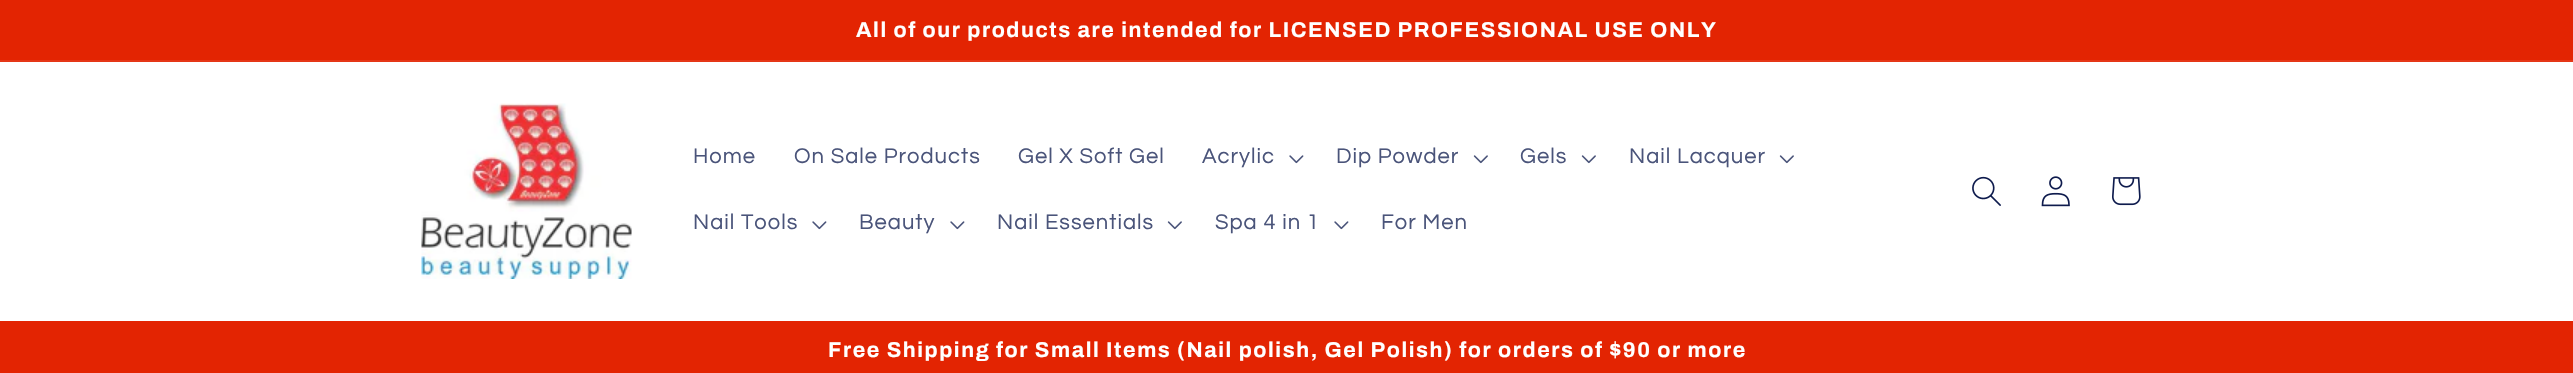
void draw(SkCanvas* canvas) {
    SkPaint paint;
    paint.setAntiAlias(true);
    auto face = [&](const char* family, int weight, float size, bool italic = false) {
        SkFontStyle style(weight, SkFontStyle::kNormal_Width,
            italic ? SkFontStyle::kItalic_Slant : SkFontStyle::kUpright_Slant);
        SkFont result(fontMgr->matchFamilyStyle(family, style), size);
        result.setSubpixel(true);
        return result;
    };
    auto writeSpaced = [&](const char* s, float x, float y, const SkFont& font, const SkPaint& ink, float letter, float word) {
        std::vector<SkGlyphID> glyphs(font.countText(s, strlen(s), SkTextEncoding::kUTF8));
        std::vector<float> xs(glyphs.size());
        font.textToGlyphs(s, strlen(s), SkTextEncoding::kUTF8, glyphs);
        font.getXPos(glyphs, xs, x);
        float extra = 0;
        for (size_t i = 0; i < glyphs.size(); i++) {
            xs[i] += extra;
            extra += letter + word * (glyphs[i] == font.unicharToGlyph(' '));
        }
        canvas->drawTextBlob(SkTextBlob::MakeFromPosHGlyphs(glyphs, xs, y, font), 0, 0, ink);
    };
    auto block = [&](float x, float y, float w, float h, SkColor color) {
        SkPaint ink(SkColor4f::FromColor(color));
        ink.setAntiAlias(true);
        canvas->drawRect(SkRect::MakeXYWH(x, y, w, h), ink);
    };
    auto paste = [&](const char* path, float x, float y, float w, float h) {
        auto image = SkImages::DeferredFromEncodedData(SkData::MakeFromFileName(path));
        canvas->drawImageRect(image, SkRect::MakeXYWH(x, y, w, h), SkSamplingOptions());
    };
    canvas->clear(SkColorSetRGB(227, 36, 2));
    block(0, 60, 2573, 2, SkColorSetRGB(229, 54, 22));
    auto kFont1 = face("Archivo", 700, 21.45f);
    paint.setColor(SK_ColorWHITE);
    writeSpaced("All of our products are intended for LICENSED PROFESSIONAL USE ONLY", 856, 37, kFont1, paint, 1.58f, 0);
    block(0, 62, 2573, 259, SK_ColorWHITE);
    paste("pic1.png", 421, 103, 211, 176);
    auto kFont2 = face("Questrial", 400, 22);
    paint.setColor(SkColorSetRGB(74, 84, 122));
    writeSpaced("Home", 693, 163, kFont2, paint, 1, 0);
    writeSpaced("On Sale Products", 794, 163, kFont2, paint, 1, 0);
    writeSpaced("Gel X Soft Gel", 1018, 163, kFont2, paint, 1, 0);
    writeSpaced("Acrylic", 1202, 163, kFont2, paint, 1, 0);
    paste("pic2.png", 1289, 155, 15, 9);
    writeSpaced("Dip Powder", 1336, 163, kFont2, paint, 1, 0);
    paste("pic3.png", 1473, 155, 15, 9);
    writeSpaced("Gels", 1520, 163, kFont2, paint, 1, 0);
    paste("pic3.png", 1581, 155, 15, 9);
    writeSpaced("Nail Lacquer", 1629, 163, kFont2, paint, 1, 0);
    paste("pic3.png", 1779, 155, 15, 9);
    writeSpaced("Nail Tools", 693, 229, kFont2, paint, 1, 0);
    paste("pic2.png", 812, 221, 15, 9);
    writeSpaced("Beauty", 859, 229, kFont2, paint, 1, 0);
    paste("pic2.png", 950, 221, 15, 9);
    writeSpaced("Nail Essentials", 997, 229, kFont2, paint, 1, 0);
    paste("pic3.png", 1167, 221, 15, 9);
    writeSpaced("Spa 4 in 1", 1215, 229, kFont2, paint, 1, 0);
    paste("pic2.png", 1334, 221, 15, 9);
    writeSpaced("For Men", 1381, 229, kFont2, paint, 1, 0);
    paste("pic4.png", 1972, 176, 29, 30);
    paste("pic5.png", 2041, 176, 29, 31);
    paste("pic6.png", 2112, 177, 29, 29);
    paint.setColor(SK_ColorWHITE);
    writeSpaced("Free Shipping for Small Items (Nail polish, Gel Polish) for orders of $90 or more", 828, 357, kFont1, paint, 1.58f, 0);
}
